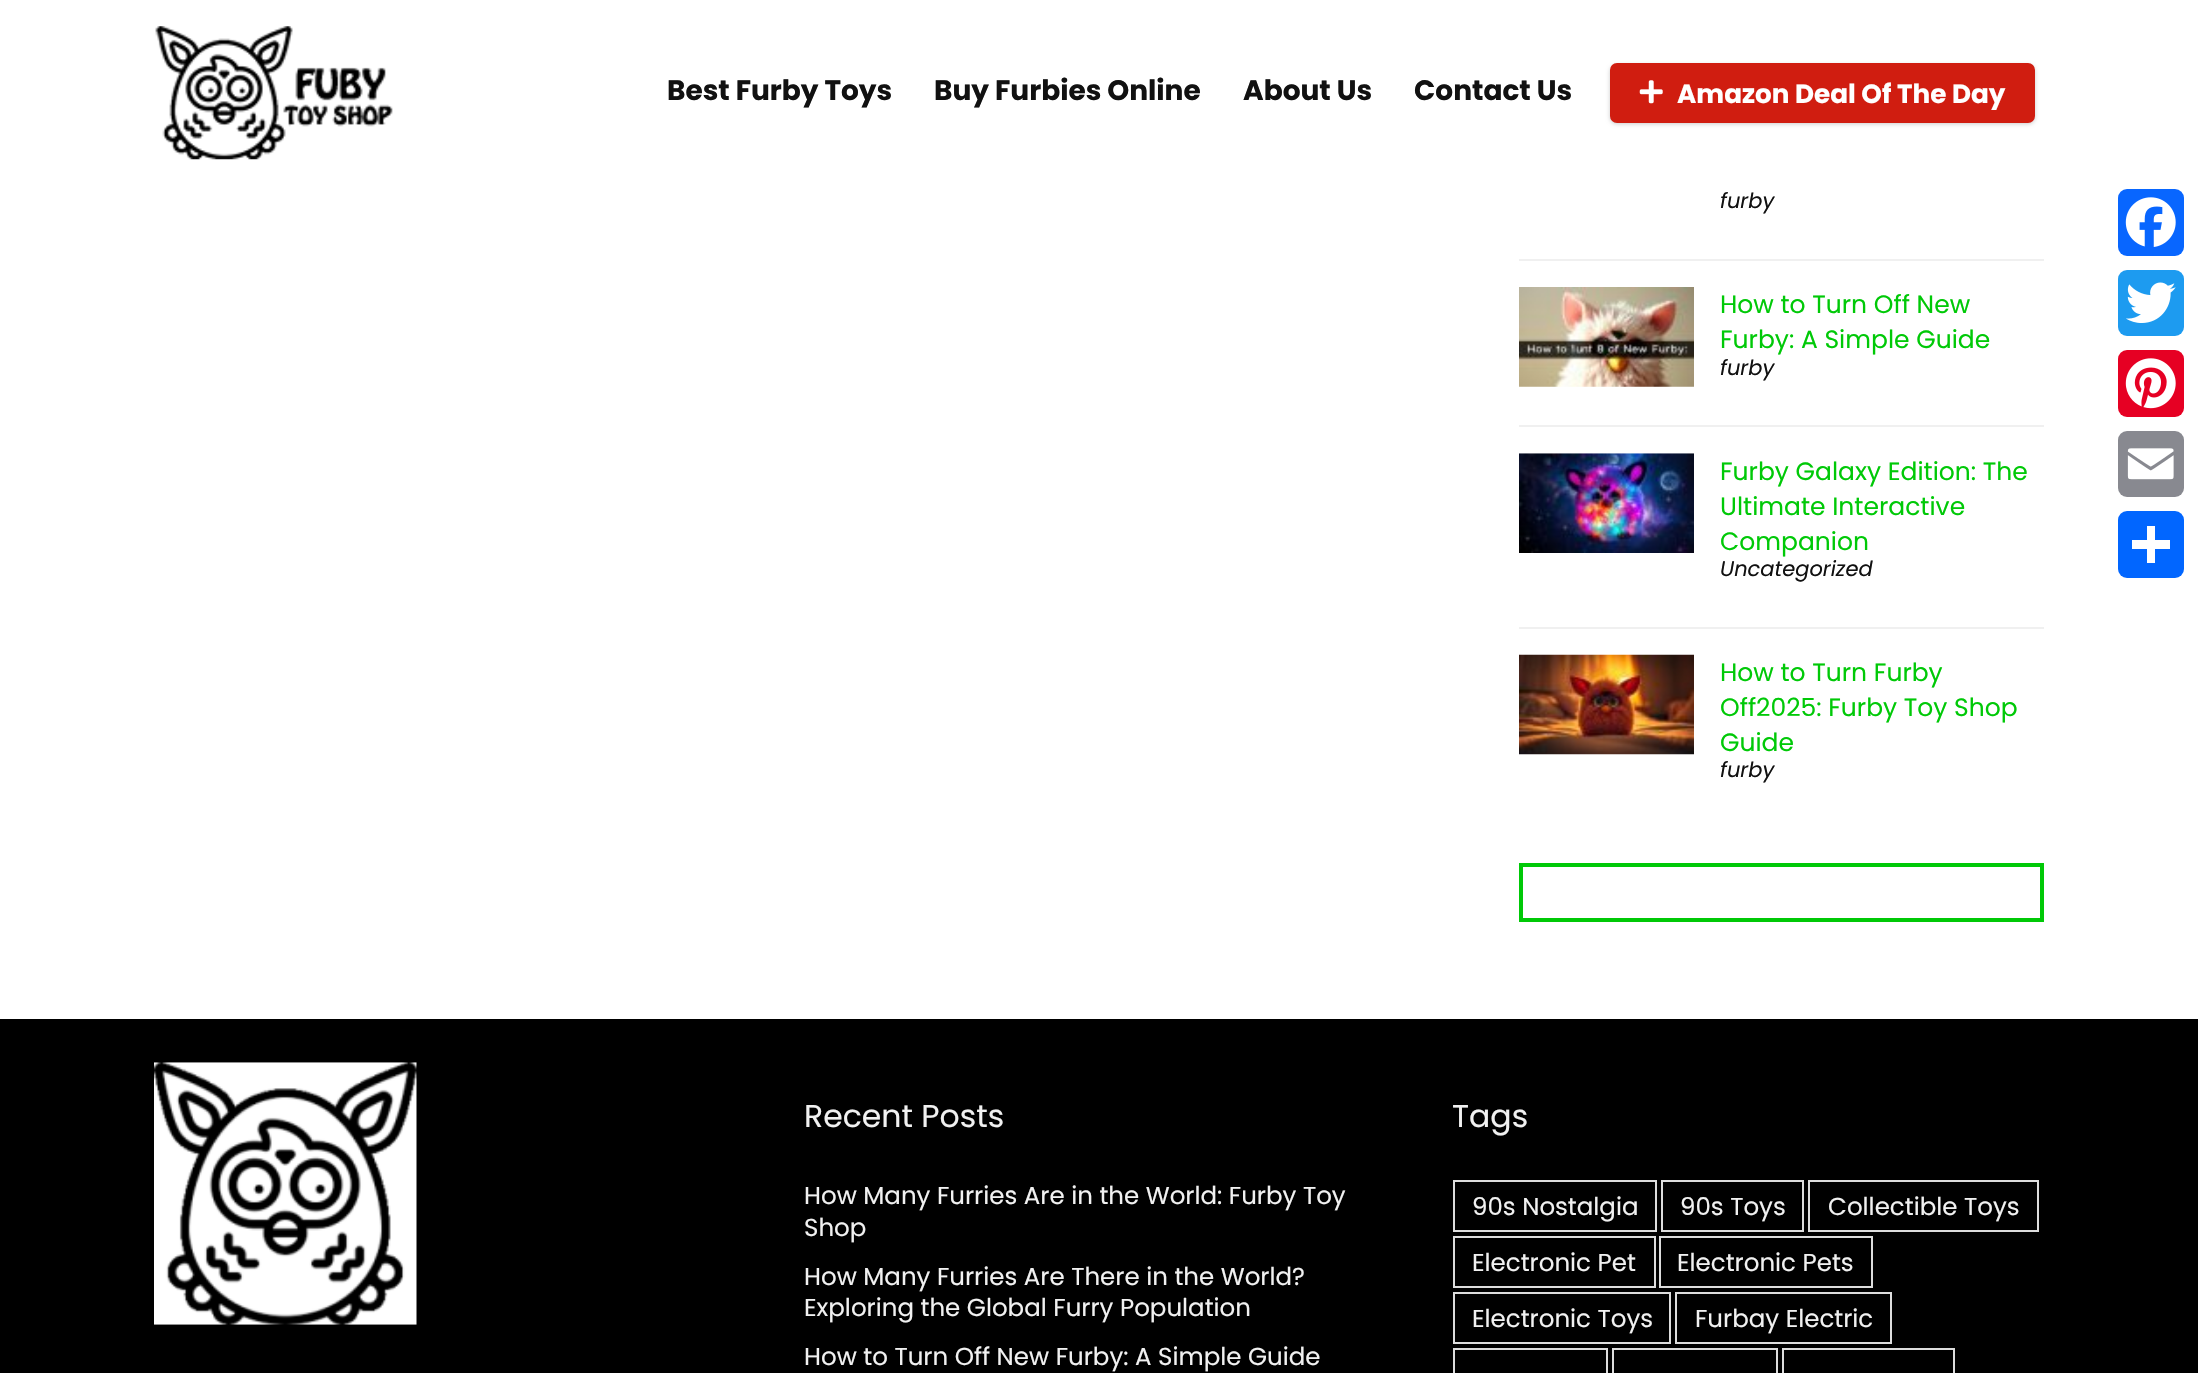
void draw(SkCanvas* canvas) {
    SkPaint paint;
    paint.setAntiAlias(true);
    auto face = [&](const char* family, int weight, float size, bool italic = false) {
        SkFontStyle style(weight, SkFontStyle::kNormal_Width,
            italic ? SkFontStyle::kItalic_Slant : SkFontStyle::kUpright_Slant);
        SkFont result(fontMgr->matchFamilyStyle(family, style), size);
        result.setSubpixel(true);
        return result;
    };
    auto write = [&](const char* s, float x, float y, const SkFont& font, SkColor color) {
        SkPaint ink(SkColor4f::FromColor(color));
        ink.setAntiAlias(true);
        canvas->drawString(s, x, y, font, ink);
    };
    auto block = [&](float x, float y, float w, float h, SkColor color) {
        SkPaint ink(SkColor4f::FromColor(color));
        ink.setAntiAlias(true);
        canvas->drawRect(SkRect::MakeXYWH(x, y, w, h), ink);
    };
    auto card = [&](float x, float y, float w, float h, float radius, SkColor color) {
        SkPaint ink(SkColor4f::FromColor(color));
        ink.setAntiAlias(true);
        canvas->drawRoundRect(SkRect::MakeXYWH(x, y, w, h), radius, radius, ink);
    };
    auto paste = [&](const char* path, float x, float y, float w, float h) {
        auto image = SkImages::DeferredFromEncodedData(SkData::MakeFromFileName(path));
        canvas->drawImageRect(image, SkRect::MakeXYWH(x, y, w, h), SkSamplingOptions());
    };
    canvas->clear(SK_ColorWHITE);
    paste("pic1.png", 155, 26, 238, 134);
    auto kFont1 = face("Poppins", 700, 28);
    write("Best Furby Toys", 667, 100, kFont1, SkColorSetRGB(17, 17, 17));
    write("Buy Furbies Online", 934, 100, kFont1, SkColorSetRGB(17, 17, 17));
    write("About Us", 1243, 100, kFont1, SkColorSetRGB(17, 17, 17));
    write("Contact Us", 1414, 100, kFont1, SkColorSetRGB(17, 17, 17));
    paint.setColor(SkColorSetARGB(51, 0, 0, 0));
    paint.setMaskFilter(SkMaskFilter::MakeBlur(kNormal_SkBlurStyle, 2));
    canvas->drawRoundRect(SkRect::MakeXYWH(1610, 65, 425, 59), 7, 7, paint);
    paint.setMaskFilter(nullptr);
    paint.setColor(SkColorSetRGB(208, 29, 16));
    canvas->drawRoundRect(SkRect::MakeXYWH(1611, 64, 423, 58), 6, 6, paint);
    paint.setStyle(SkPaint::kStroke_Style);
    paint.setStrokeWidth(2);
    canvas->drawRoundRect(SkRect::MakeXYWH(1611, 64, 423, 58), 6, 6, paint);
    paste("pic2.png", 1639, 80, 24, 24);
    auto kFont2 = face("Poppins", 700, 26.25f);
    write("Amazon Deal Of The Day", 1677, 103, kFont2, SK_ColorWHITE);
    block(1519, 259, 525, 2, SkColorSetRGB(240, 240, 240));
    auto kFont3 = face("Poppins", 400, 21, true);
    write("furby", 1720, 208, kFont3, SkColorSetRGB(17, 17, 17));
    block(1519, 425, 525, 2, SkColorSetRGB(240, 240, 240));
    paste("pic3.png", 1519, 287, 175, 100);
    auto kFont4 = face("Poppins", 400, 25);
    write("How to Turn Off New", 1720, 313, kFont4, SkColorSetRGB(0, 201, 7));
    write("Furby: A Simple Guide", 1720, 348, kFont4, SkColorSetRGB(0, 201, 7));
    write("furby", 1720, 375, kFont3, SkColorSetRGB(17, 17, 17));
    block(1519, 627, 525, 2, SkColorSetRGB(240, 240, 240));
    paste("pic4.png", 1519, 453, 175, 100);
    write("Furby Galaxy Edition: The", 1720, 480, kFont4, SkColorSetRGB(0, 201, 7));
    write("Ultimate Interactive", 1720, 515, kFont4, SkColorSetRGB(0, 201, 7));
    write("Companion", 1720, 550, kFont4, SkColorSetRGB(0, 201, 7));
    write("Uncategorized", 1720, 576, kFont3, SkColorSetRGB(17, 17, 17));
    paste("pic5.png", 1519, 654, 175, 101);
    write("How to Turn Furby", 1720, 681, kFont4, SkColorSetRGB(0, 201, 7));
    write("Off2025: Furby Toy Shop", 1720, 716, kFont4, SkColorSetRGB(0, 201, 7));
    write("Guide", 1720, 751, kFont4, SkColorSetRGB(0, 201, 7));
    write("furby", 1720, 777, kFont3, SkColorSetRGB(17, 17, 17));
    paint.setStrokeWidth(4);
    paint.setColor(SkColorSetRGB(0, 201, 7));
    canvas->drawRect(SkRect::MakeXYWH(1521, 865, 521, 55), paint);
    block(0, 1019, 2198, 354, SK_ColorBLACK);
    paste("pic6.png", 154, 1062, 263, 263);
    auto kFont5 = face("Poppins", 400, 31.5f);
    write("Recent Posts", 804, 1127, kFont5, SkColorSetRGB(241, 241, 241));
    auto kFont6 = face("Poppins", 400, 24.5f);
    write("How Many Furries Are in the World: Furby Toy", 804, 1204, kFont6, SkColorSetRGB(241, 241, 241));
    write("Shop", 804, 1236, kFont6, SkColorSetRGB(241, 241, 241));
    write("How Many Furries Are There in the World?", 804, 1285, kFont6, SkColorSetRGB(241, 241, 241));
    write("Exploring the Global Furry Population", 804, 1316, kFont6, SkColorSetRGB(241, 241, 241));
    write("How to Turn Off New Furby: A Simple Guide", 804, 1365, kFont6, SkColorSetRGB(241, 241, 241));
    write("Tags", 1452, 1127, kFont5, SkColorSetRGB(241, 241, 241));
    paint.setStrokeWidth(2);
    paint.setColor(SkColorSetRGB(221, 221, 221));
    canvas->drawRect(SkRect::MakeXYWH(1454, 1181, 202, 50), paint);
    write("90s Nostalgia", 1472, 1215, kFont6, SkColorSetRGB(241, 241, 241));
    canvas->drawRect(SkRect::MakeXYWH(1662, 1181, 141, 50), paint);
    write("90s Toys", 1680, 1215, kFont6, SkColorSetRGB(241, 241, 241));
    canvas->drawRect(SkRect::MakeXYWH(1809, 1181, 229, 50), paint);
    write("Collectible Toys", 1828, 1215, kFont6, SkColorSetRGB(241, 241, 241));
    canvas->drawRect(SkRect::MakeXYWH(1454, 1237, 201, 50), paint);
    write("Electronic Pet", 1472, 1271, kFont6, SkColorSetRGB(241, 241, 241));
    canvas->drawRect(SkRect::MakeXYWH(1660, 1237, 212, 50), paint);
    write("Electronic Pets", 1677, 1271, kFont6, SkColorSetRGB(241, 241, 241));
    canvas->drawRect(SkRect::MakeXYWH(1454, 1293, 216, 50), paint);
    write("Electronic Toys", 1472, 1327, kFont6, SkColorSetRGB(241, 241, 241));
    canvas->drawRect(SkRect::MakeXYWH(1676, 1293, 215, 50), paint);
    write("Furbay Electric", 1695, 1327, kFont6, SkColorSetRGB(241, 241, 241));
    canvas->drawRect(SkRect::MakeXYWH(1454, 1349, 153, 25), paint);
    canvas->drawRect(SkRect::MakeXYWH(1613, 1349, 164, 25), paint);
    canvas->drawRect(SkRect::MakeXYWH(1783, 1349, 171, 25), paint);
    card(2118, 189, 66, 67, 9, SkColorSetRGB(8, 102, 255));
    paste("pic7.png", 2125, 197, 51, 50);
    card(2118, 270, 66, 66, 9, SkColorSetRGB(29, 155, 240));
    paste("pic8.png", 2126, 282, 50, 41);
    card(2118, 350, 66, 67, 9, SkColorSetRGB(230, 0, 35));
    paste("pic9.png", 2125, 358, 51, 51);
    card(2118, 431, 66, 66, 9, SkColorSetRGB(136, 137, 144));
    paste("pic10.png", 2127, 448, 47, 32);
    card(2118, 511, 66, 67, 9, SkColorSetRGB(1, 102, 255));
    block(2147, 526, 8, 37, SK_ColorWHITE);
    block(2132, 540, 38, 9, SK_ColorWHITE);
}
